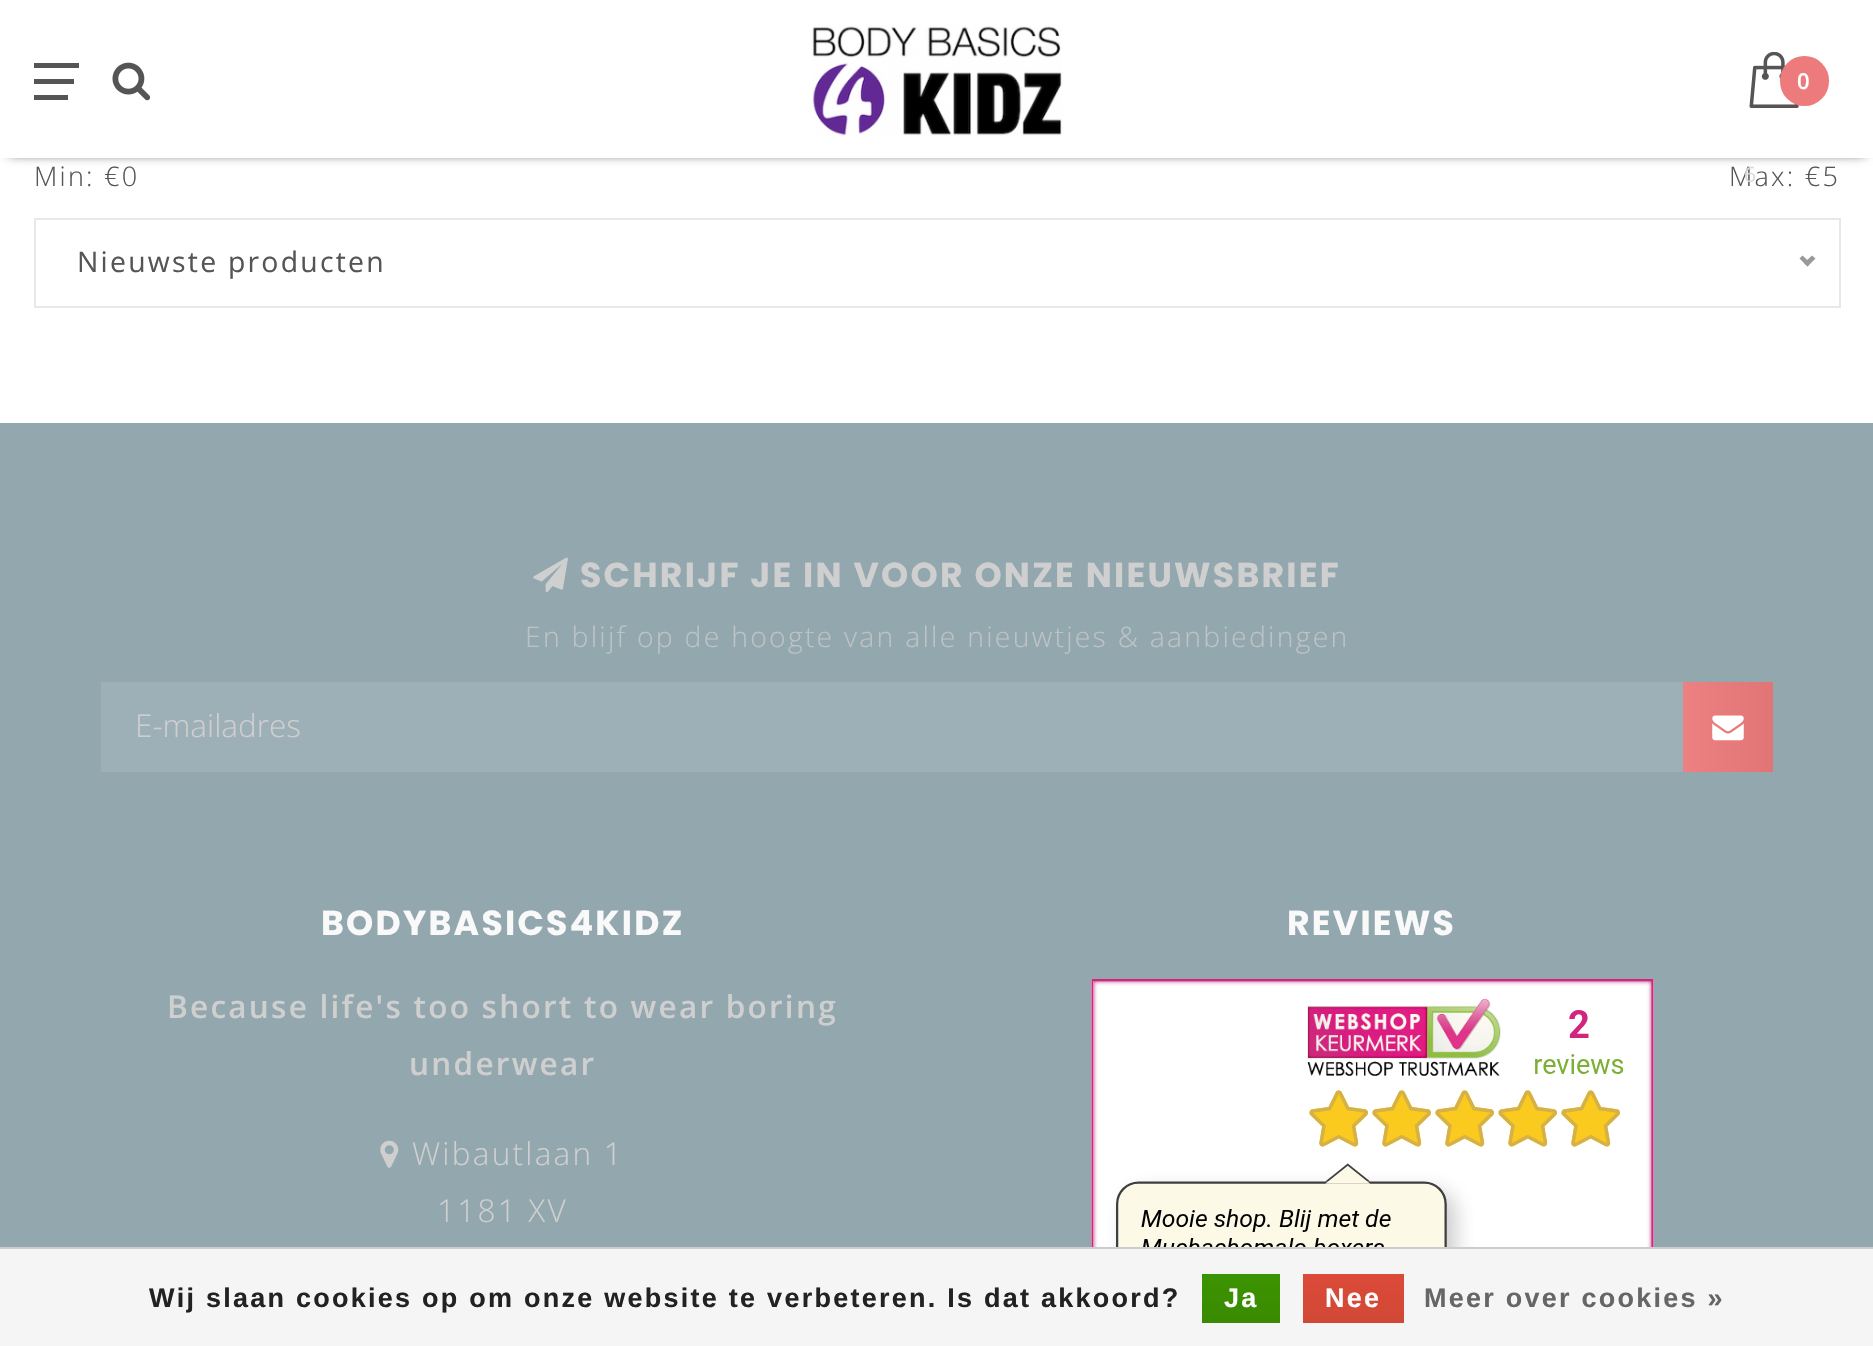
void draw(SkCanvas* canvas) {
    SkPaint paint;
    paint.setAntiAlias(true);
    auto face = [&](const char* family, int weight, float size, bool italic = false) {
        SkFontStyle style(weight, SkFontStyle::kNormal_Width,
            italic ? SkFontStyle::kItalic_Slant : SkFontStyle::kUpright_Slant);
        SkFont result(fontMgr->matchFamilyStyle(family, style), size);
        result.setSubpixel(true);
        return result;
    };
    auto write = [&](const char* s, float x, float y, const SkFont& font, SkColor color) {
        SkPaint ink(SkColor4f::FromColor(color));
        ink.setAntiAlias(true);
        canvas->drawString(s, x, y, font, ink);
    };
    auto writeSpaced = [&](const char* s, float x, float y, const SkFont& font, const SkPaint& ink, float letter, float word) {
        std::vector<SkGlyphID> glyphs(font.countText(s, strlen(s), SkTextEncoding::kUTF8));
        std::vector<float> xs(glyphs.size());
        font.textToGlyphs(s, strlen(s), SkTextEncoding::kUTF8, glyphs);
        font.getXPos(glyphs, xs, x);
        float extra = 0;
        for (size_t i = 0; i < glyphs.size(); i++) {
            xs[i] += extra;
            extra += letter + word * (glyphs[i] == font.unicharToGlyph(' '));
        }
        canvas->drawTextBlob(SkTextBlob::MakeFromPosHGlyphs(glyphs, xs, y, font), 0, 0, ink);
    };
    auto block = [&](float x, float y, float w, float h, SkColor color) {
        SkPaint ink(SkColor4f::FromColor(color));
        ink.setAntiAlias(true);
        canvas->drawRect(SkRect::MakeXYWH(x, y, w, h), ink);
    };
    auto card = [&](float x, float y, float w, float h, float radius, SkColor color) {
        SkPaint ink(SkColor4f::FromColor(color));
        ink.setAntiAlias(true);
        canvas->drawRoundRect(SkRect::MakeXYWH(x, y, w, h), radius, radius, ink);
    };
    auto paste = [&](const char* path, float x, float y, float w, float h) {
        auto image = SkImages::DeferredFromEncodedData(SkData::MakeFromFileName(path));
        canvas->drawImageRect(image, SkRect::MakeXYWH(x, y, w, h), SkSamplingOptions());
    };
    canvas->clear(SK_ColorWHITE);
    paint.setColor(SK_ColorBLACK);
    paint.setMaskFilter(SkMaskFilter::MakeBlur(kNormal_SkBlurStyle, 5.5f));
    canvas->drawRect(SkRect::MakeXYWH(9, 14, 1856, 139), paint);
    paint.setMaskFilter(nullptr);
    block(0, 1, 1873, 157, SK_ColorWHITE);
    block(34, 63, 45, 5, SkColorSetRGB(85, 85, 85));
    block(34, 79, 40, 5, SkColorSetRGB(85, 85, 85));
    block(34, 95, 34, 5, SkColorSetRGB(85, 85, 85));
    paste("pic1.png", 112, 62, 39, 39);
    paste("pic2.png", 812, 26, 250, 110);
    paste("pic3.png", 1749, 52, 50, 56);
    card(1780, 56, 49, 50, 24.5f, SkColorSetRGB(237, 123, 123));
    auto kFont1 = face("Open Sans", 600, 22);
    paint.setColor(SK_ColorWHITE);
    writeSpaced("0", 1797, 89, kFont1, paint, 2.25f, 0);
    auto kFont2 = face("Open Sans", 300, 27);
    paint.setColor(SkColorSetRGB(85, 85, 85));
    writeSpaced("Min: €0", 34, 186, kFont2, paint, 2.25f, 0);
    writeSpaced("Max: €5", 1729, 186, kFont2, paint, 2.25f, 0);
    paint.setStyle(SkPaint::kStroke_Style);
    paint.setStrokeWidth(2);
    paint.setColor(SkColorSetRGB(232, 232, 232));
    canvas->drawRect(SkRect::MakeXYWH(35, 219, 1805, 88), paint);
    auto kFont3 = face("Open Sans", 400, 28.35f);
    paint.setStyle(SkPaint::kFill_Style);
    paint.setColor(SkColorSetRGB(85, 85, 85));
    writeSpaced("Nieuwste producten", 77, 272, kFont3, paint, 2.25f, 0);
    paint.setColor(SkColorSetRGB(153, 153, 153));
    canvas->drawPath(SkPathBuilder().moveTo(1812, 255.5f).lineTo(1815.5f, 258.5f).lineTo(1807.5f, 266.5f).lineTo(1804, 263).close().detach(), paint);
    canvas->drawPath(SkPathBuilder().moveTo(1802.5f, 255.5f).lineTo(1810.5f, 263).lineTo(1807.5f, 266.5f).lineTo(1799.5f, 258.5f).close().detach(), paint);
    auto kFont4 = face("Open Sans", 400, 21);
    paint.setColor(SkColorSetRGB(219, 219, 219));
    writeSpaced("6", 1744, 182, kFont4, paint, 2, 0);
    block(0, 423, 1873, 824, SkColorSetRGB(147, 167, 175));
    paste("pic4.png", 533, 557, 35, 36);
    auto kFont5 = face("Poppins", 700, 34.65f);
    paint.setColor(SkColorSetRGB(207, 207, 207));
    writeSpaced("SCHRIJF JE IN VOOR ONZE NIEUWSBRIEF", 580, 587, kFont5, paint, 2.25f, 0);
    auto kFont6 = face("Open Sans", 300, 28.35f);
    paint.setColor(SkColorSetRGB(189, 195, 197));
    writeSpaced("En blijf op de hoogte van alle nieuwtjes & aanbiedingen", 525, 647, kFont6, paint, 2.25f, 0);
    block(101, 682, 1582, 90, SkColorSetRGB(157, 175, 183));
    auto kFont7 = face("Open Sans", 300, 31.5f);
    write("E-mailadres", 135, 737, kFont7, SkColorSetRGB(207, 207, 207));
    {
        const SkColor colors[] = {SkColorSetRGB(237, 129, 129), SkColorSetRGB(225, 116, 116)};
        const float stops[] = {0, 1};
        const SkPoint ends[] = {{1683, 727}, {1773, 727}};
        paint.setShader(SkGradientShader::MakeLinear(ends, colors, stops, 2, SkTileMode::kClamp));
        paint.setAlpha(255);
    }
    canvas->drawRect(SkRect::MakeXYWH(1683, 682, 90, 90), paint);
    paste("pic5.png", 1712, 715, 32, 26);
    paint.setShader(nullptr);
    paint.setColor(SkColorSetRGB(249, 249, 249));
    writeSpaced("BODYBASICS4KIDZ", 321, 935, kFont5, paint, 2.25f, 0);
    auto kFont8 = face("Open Sans", 600, 31.5f);
    paint.setColor(SkColorSetRGB(207, 207, 207));
    writeSpaced("Because life's too short to wear boring", 167, 1018, kFont8, paint, 2.25f, 0);
    writeSpaced("underwear", 409, 1075, kFont8, paint, 2.25f, 0);
    paste("pic6.png", 380, 1140, 19, 28);
    writeSpaced("Wibautlaan 1", 412, 1165, kFont7, paint, 2.25f, 0);
    writeSpaced("1181 XV", 437, 1222, kFont7, paint, 2.25f, 0);
    paint.setColor(SkColorSetRGB(249, 249, 249));
    writeSpaced("REVIEWS", 1287, 935, kFont5, paint, 2.25f, 0);
    paste("pic7.png", 1091, 979, 563, 268);
    block(0, 1249, 1873, 97, SkColorSetRGB(245, 245, 245));
    block(0, 1247, 1873, 2, SkColorSetRGB(204, 204, 204));
    auto kFont9 = face("Liberation Sans", 700, 27);
    paint.setColor(SkColorSetRGB(34, 34, 34));
    writeSpaced("Wij slaan cookies op om onze website te verbeteren. Is dat akkoord?", 149, 1307, kFont9, paint, 2.25f, 0);
    {
        const SkColor colors[] = {SkColorSetRGB(60, 147, 0), SkColorSetRGB(57, 138, 0)};
        const float stops[] = {0, 1};
        const SkPoint ends[] = {{1241, 1274}, {1241, 1323}};
        paint.setShader(SkGradientShader::MakeLinear(ends, colors, stops, 2, SkTileMode::kClamp));
        paint.setAlpha(255);
    }
    canvas->drawRect(SkRect::MakeXYWH(1202, 1274, 78, 49), paint);
    paint.setShader(nullptr);
    paint.setColor(SK_ColorWHITE);
    writeSpaced("Ja", 1224, 1307, kFont9, paint, 2.25f, 0);
    {
        const SkColor colors[] = {SkColorSetRGB(220, 74, 56), SkColorSetRGB(209, 72, 54)};
        const float stops[] = {0, 1};
        const SkPoint ends[] = {{1353, 1274}, {1353, 1323}};
        paint.setShader(SkGradientShader::MakeLinear(ends, colors, stops, 2, SkTileMode::kClamp));
        paint.setAlpha(255);
    }
    canvas->drawRect(SkRect::MakeXYWH(1303, 1274, 101, 49), paint);
    paint.setShader(nullptr);
    paint.setColor(SK_ColorWHITE);
    writeSpaced("Nee", 1325, 1307, kFont9, paint, 2.25f, 0);
    paint.setColor(SkColorSetRGB(102, 102, 102));
    writeSpaced("Meer over cookies »", 1424, 1307, kFont9, paint, 2.25f, 0);
}
